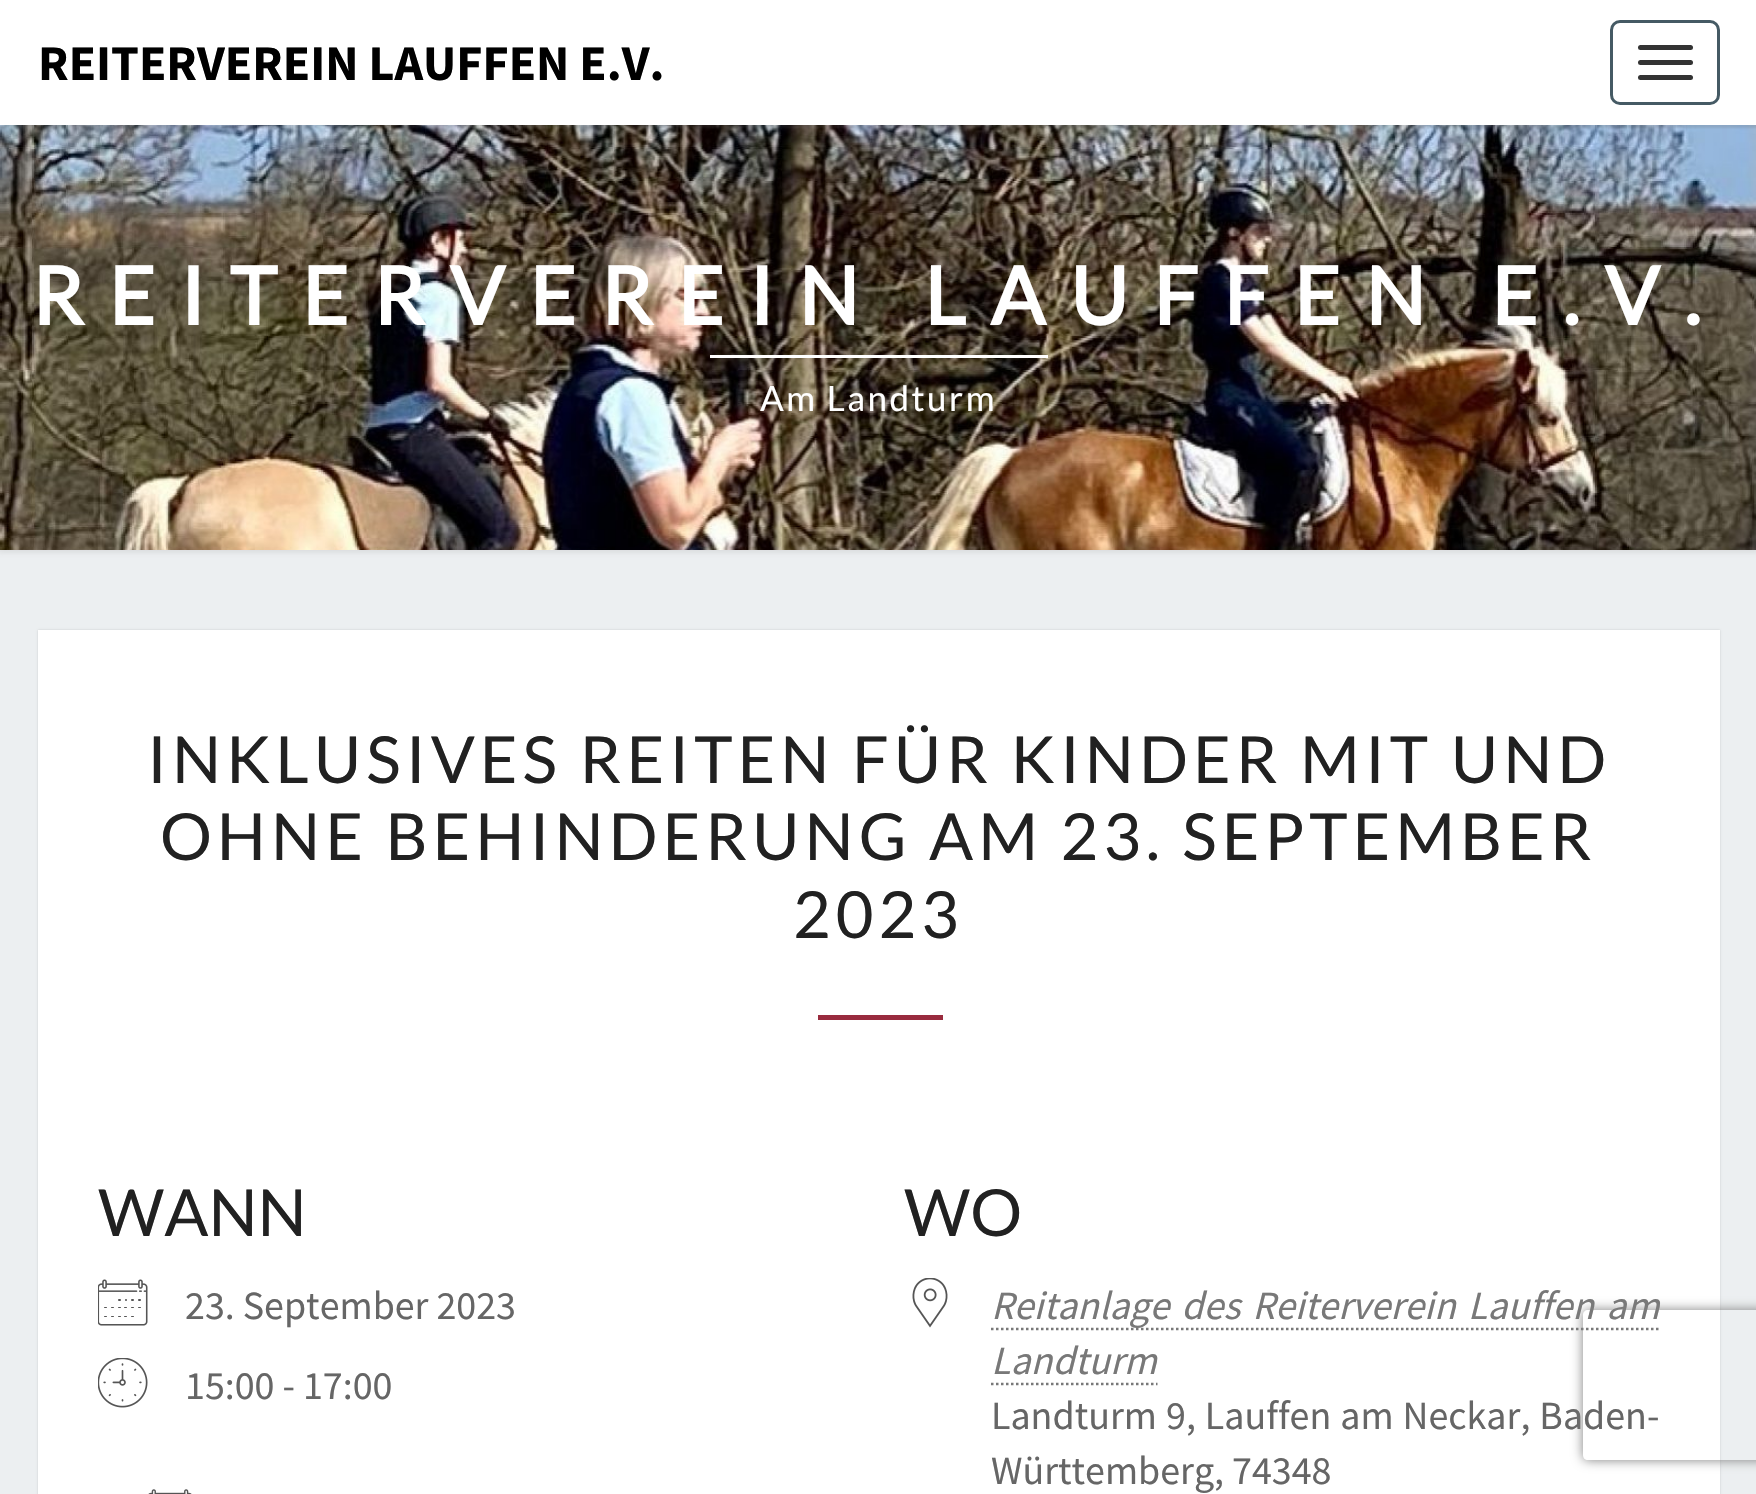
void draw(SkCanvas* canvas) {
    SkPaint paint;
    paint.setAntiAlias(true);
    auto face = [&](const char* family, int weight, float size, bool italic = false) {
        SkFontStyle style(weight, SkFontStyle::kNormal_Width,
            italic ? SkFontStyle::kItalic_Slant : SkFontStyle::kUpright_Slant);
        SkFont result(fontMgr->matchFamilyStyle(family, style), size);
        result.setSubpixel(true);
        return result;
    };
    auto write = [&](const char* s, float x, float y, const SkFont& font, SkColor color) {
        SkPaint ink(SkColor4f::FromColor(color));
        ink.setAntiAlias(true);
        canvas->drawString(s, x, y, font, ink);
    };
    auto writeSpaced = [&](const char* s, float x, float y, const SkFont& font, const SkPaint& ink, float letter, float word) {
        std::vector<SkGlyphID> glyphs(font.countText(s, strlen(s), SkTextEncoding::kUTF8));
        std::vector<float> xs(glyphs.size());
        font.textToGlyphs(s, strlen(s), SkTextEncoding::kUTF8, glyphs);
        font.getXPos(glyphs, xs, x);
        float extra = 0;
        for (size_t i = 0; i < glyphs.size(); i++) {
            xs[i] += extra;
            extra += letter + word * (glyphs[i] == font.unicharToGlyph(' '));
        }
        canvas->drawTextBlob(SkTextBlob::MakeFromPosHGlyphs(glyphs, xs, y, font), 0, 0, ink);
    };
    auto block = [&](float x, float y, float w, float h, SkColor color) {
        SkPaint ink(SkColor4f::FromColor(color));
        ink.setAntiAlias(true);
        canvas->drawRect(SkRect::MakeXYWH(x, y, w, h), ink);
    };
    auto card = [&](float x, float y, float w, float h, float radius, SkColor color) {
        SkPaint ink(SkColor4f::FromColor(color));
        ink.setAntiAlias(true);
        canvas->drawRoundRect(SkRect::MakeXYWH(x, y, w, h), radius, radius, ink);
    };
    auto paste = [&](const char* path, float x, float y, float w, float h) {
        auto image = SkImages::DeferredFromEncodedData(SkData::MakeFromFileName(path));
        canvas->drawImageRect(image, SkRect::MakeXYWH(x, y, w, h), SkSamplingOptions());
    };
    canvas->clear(SkColorSetRGB(236, 239, 241));
    paint.setColor(SkColorSetARGB(77, 182, 182, 182));
    paint.setMaskFilter(SkMaskFilter::MakeBlur(kNormal_SkBlurStyle, 2.5f));
    canvas->drawRect(SkRect::MakeXYWH(-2, 123, 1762, 430), paint);
    paint.setMaskFilter(nullptr);
    paste("pic1.png", 0, 125, 1756, 425);
    paint.setColor(SkColorSetARGB(51, 100, 100, 100));
    paint.setMaskFilter(SkMaskFilter::MakeBlur(kNormal_SkBlurStyle, 1));
    canvas->drawRect(SkRect::MakeXYWH(0, 3, 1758, 125), paint);
    paint.setMaskFilter(nullptr);
    block(0, 0, 1756, 125, SK_ColorWHITE);
    auto kFont1 = face("Source Sans Pro", 700, 50);
    write("REITERVEREIN LAUFFEN E.V.", 38, 80, kFont1, SK_ColorBLACK);
    paint.setStyle(SkPaint::kStroke_Style);
    paint.setStrokeWidth(3);
    paint.setColor(SkColorSetRGB(69, 90, 100));
    canvas->drawRoundRect(SkRect::MakeXYWH(1611.5f, 21.5f, 107, 82), 8.5f, 8.5f, paint);
    card(1638, 45, 55, 5, 2.5f, SkColorSetRGB(51, 51, 51));
    card(1638, 60, 55, 5, 2.5f, SkColorSetRGB(51, 51, 51));
    card(1638, 75, 55, 5, 2.5f, SkColorSetRGB(51, 51, 51));
    auto kFont2 = face("Lato", 700, 80);
    paint.setStyle(SkPaint::kFill_Style);
    paint.setColor(SK_ColorWHITE);
    writeSpaced("REITERVEREIN LAUFFEN E.V.", 32, 325, kFont2, paint, 25, 0);
    block(710, 355, 338, 3, SK_ColorWHITE);
    auto kFont3 = face("Lato", 400, 35);
    writeSpaced("Am Landturm", 760, 411, kFont3, paint, 2.5f, 0);
    paint.setColor(SkColorSetARGB(38, 0, 0, 0));
    paint.setMaskFilter(SkMaskFilter::MakeBlur(kNormal_SkBlurStyle, 1));
    canvas->drawRect(SkRect::MakeXYWH(38, 630, 1682, 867), paint);
    paint.setMaskFilter(nullptr);
    block(38, 630, 1682, 864, SK_ColorWHITE);
    auto kFont4 = face("Lato", 400, 65);
    paint.setColor(SkColorSetRGB(33, 33, 33));
    writeSpaced("INKLUSIVES REITEN FÜR KINDER MIT UND", 147, 783, kFont4, paint, 5, 0);
    writeSpaced("OHNE BEHINDERUNG AM 23. SEPTEMBER", 160, 860, kFont4, paint, 5, 0);
    writeSpaced("2023", 793, 938, kFont4, paint, 5, 0);
    block(818, 1015, 125, 5, SkColorSetRGB(153, 43, 62));
    write("WANN", 98, 1236, kFont4, SkColorSetRGB(33, 33, 33));
    paste("pic2.png", 98, 1279, 50, 47);
    auto kFont5 = face("Source Sans Pro", 400, 40);
    write("23. September 2023", 185, 1319, kFont5, SkColorSetRGB(102, 102, 102));
    paste("pic3.png", 98, 1358, 50, 50);
    write("15:00 - 17:00", 185, 1399, kFont5, SkColorSetRGB(102, 102, 102));
    paste("pic4.png", 148, 1489, 44, 5);
    write("WO", 904, 1236, kFont4, SkColorSetRGB(33, 33, 33));
    paste("pic5.png", 912, 1278, 36, 50);
    paint.setStyle(SkPaint::kStroke_Style);
    paint.setStrokeWidth(2.5f);
    paint.setColor(SkColorSetRGB(120, 120, 120));
    paint.setPathEffect(SkDashPathEffect::Make({{2.5f, 2.5f}}, 0));
    canvas->drawPath(SkPathBuilder().moveTo(991, 1329).lineTo(1660, 1329).detach(), paint);
    paint.setPathEffect(nullptr);
    auto kFont6 = face("Source Sans Pro", 400, 40, true);
    paint.setStyle(SkPaint::kFill_Style);
    writeSpaced("Reitanlage des Reiterverein Lauffen am", 991, 1319, kFont6, paint, 0, 4);
    write("Landturm", 991, 1374, kFont6, SkColorSetRGB(120, 120, 120));
    paint.setStyle(SkPaint::kStroke_Style);
    paint.setPathEffect(SkDashPathEffect::Make({{2.5f, 2.5f}}, 0));
    canvas->drawPath(SkPathBuilder().moveTo(991, 1384).lineTo(1157.5f, 1384).detach(), paint);
    paint.setPathEffect(nullptr);
    paint.setStyle(SkPaint::kFill_Style);
    paint.setColor(SkColorSetRGB(102, 102, 102));
    writeSpaced("Landturm 9, Lauffen am Neckar, Baden-", 991, 1429, kFont5, paint, 0, 1);
    write("Württemberg, 74348", 991, 1484, kFont5, SkColorSetRGB(102, 102, 102));
    canvas->save();
    canvas->clipPath(SkPathBuilder(SkPathFillType::kEvenOdd).moveTo(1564, 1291).lineTo(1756, 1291).lineTo(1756, 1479).lineTo(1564, 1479).close().moveTo(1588, 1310).lineTo(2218, 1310).cubicTo(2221, 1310, 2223, 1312, 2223, 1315).lineTo(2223, 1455).cubicTo(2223, 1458, 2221, 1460, 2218, 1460).lineTo(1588, 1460).cubicTo(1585, 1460, 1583, 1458, 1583, 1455).lineTo(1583, 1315).cubicTo(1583, 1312, 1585, 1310, 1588, 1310).close().detach(), true);
    paint.setColor(SkColorSetRGB(128, 128, 128));
    paint.setMaskFilter(SkMaskFilter::MakeBlur(kNormal_SkBlurStyle, 6));
    canvas->drawRoundRect(SkRect::MakeXYWH(1583, 1310, 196, 150), 5, 5, paint);
    paint.setMaskFilter(nullptr);
    canvas->restore();
}
